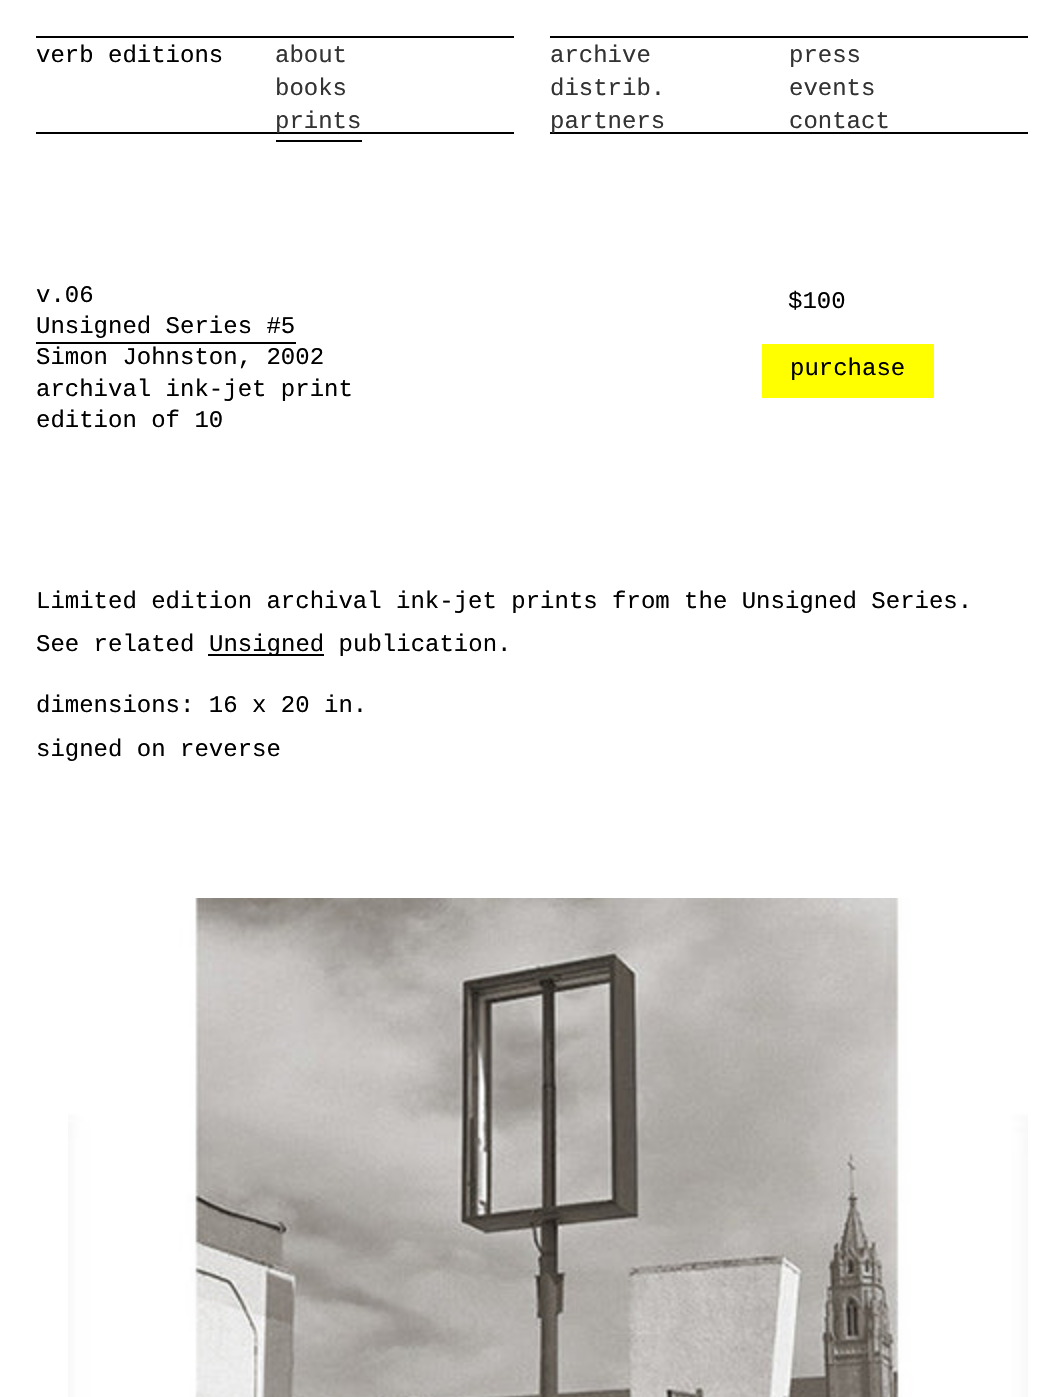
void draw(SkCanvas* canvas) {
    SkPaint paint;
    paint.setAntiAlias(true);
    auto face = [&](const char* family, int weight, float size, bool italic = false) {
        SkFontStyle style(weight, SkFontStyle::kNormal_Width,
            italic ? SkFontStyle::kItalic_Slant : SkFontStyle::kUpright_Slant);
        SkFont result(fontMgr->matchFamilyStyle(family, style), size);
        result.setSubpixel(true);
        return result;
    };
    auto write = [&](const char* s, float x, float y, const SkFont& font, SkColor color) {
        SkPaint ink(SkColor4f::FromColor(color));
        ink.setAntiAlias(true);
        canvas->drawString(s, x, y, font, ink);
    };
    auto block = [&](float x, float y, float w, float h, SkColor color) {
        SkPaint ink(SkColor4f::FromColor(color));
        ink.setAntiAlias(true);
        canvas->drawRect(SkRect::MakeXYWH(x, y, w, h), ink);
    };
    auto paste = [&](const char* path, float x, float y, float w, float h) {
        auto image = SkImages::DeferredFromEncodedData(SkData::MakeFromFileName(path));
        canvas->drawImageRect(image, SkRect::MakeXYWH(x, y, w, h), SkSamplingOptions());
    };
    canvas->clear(SK_ColorWHITE);
    block(36, 36, 478, 2, SK_ColorBLACK);
    block(36, 132, 478, 2, SK_ColorBLACK);
    auto kFont1 = face("Liberation Mono", 400, 24);
    write("verb editions", 36, 62, kFont1, SK_ColorBLACK);
    write("about", 275, 62, kFont1, SkColorSetRGB(51, 51, 51));
    write("books", 275, 95, kFont1, SkColorSetRGB(51, 51, 51));
    block(276, 140, 86, 2, SK_ColorBLACK);
    write("prints", 275, 128, kFont1, SkColorSetRGB(51, 51, 51));
    block(550, 36, 478, 2, SK_ColorBLACK);
    block(550, 132, 478, 2, SK_ColorBLACK);
    write("archive", 550, 62, kFont1, SkColorSetRGB(51, 51, 51));
    write("distrib.", 550, 95, kFont1, SkColorSetRGB(51, 51, 51));
    write("partners", 550, 128, kFont1, SkColorSetRGB(51, 51, 51));
    write("press", 789, 62, kFont1, SkColorSetRGB(51, 51, 51));
    write("events", 789, 95, kFont1, SkColorSetRGB(51, 51, 51));
    write("contact", 789, 128, kFont1, SkColorSetRGB(51, 51, 51));
    write("v.06", 36, 302, kFont1, SK_ColorBLACK);
    write("Unsigned Series #5", 36, 333, kFont1, SK_ColorBLACK);
    block(36, 342, 260, 2, SK_ColorBLACK);
    write("Simon Johnston, 2002", 36, 364, kFont1, SK_ColorBLACK);
    write("archival ink-jet print", 36, 396, kFont1, SK_ColorBLACK);
    write("edition of 10", 36, 427, kFont1, SK_ColorBLACK);
    write("$100", 788, 308, kFont1, SK_ColorBLACK);
    block(762, 344, 172, 54, SkColorSetRGB(255, 255, 0));
    write("purchase", 790, 375, kFont1, SK_ColorBLACK);
    write("Limited edition archival ink-jet prints from the Unsigned Series.", 36, 608, kFont1, SK_ColorBLACK);
    write("See related", 36, 651, kFont1, SK_ColorBLACK);
    block(208, 654, 116, 2, SK_ColorBLACK);
    write("Unsigned publication.", 209, 651, kFont1, SK_ColorBLACK);
    write("dimensions: 16 x 20 in.", 36, 712, kFont1, SK_ColorBLACK);
    write("signed on reverse", 36, 756, kFont1, SK_ColorBLACK);
    paste("pic1.png", 68, 898, 960, 499);
}
